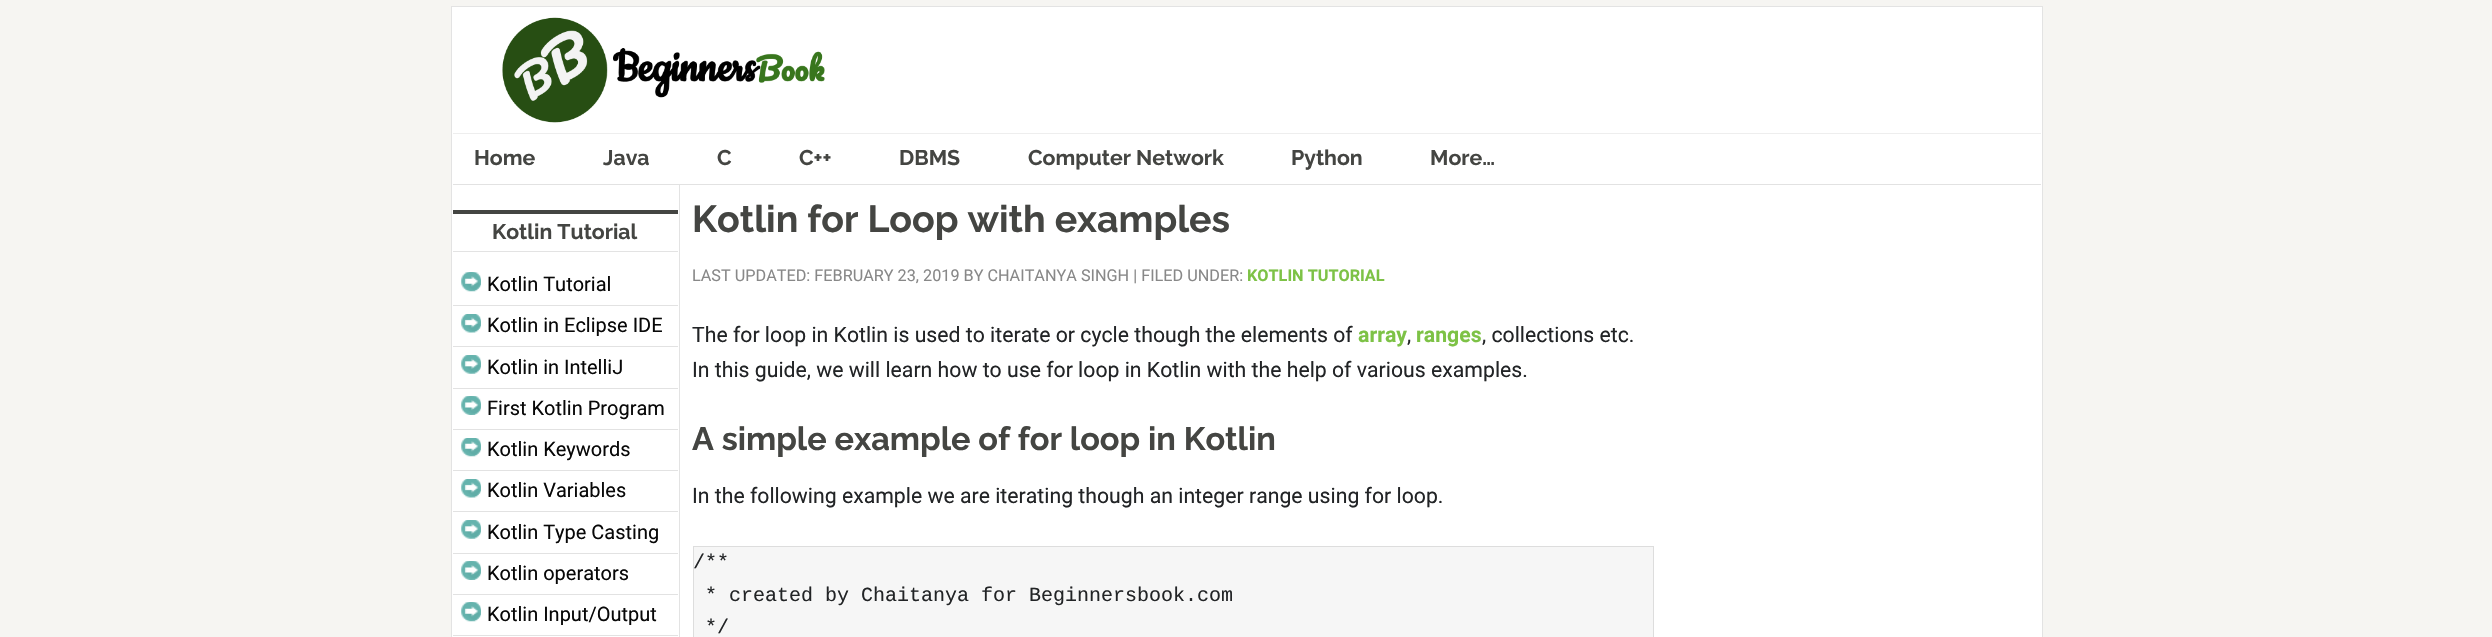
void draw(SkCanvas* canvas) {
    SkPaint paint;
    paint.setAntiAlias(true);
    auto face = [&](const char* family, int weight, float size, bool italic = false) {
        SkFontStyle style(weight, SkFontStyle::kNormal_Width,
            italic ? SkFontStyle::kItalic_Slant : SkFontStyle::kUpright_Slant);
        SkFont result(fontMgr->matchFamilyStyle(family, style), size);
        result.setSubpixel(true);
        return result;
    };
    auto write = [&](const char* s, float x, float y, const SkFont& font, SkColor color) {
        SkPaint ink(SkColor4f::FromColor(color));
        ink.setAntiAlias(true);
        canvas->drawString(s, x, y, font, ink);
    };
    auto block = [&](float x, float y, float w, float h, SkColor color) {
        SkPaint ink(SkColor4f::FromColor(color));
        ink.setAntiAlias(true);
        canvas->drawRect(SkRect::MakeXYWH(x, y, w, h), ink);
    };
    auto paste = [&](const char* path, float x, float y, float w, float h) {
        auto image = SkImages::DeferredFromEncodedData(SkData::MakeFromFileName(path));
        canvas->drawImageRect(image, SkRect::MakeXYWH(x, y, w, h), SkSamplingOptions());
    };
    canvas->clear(SkColorSetRGB(246, 245, 242));
    paint.setColor(SK_ColorWHITE);
    canvas->drawRect(SkRect::MakeXYWH(451.5f, 6.5f, 1591, 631), paint);
    paint.setStyle(SkPaint::kStroke_Style);
    paint.setStrokeWidth(1);
    paint.setColor(SkColorSetRGB(227, 227, 227));
    canvas->drawRect(SkRect::MakeXYWH(451.5f, 6.5f, 1591, 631), paint);
    block(453, 133, 1588, 1, SkColorSetRGB(238, 238, 238));
    paste("pic1.png", 502, 17, 323, 106);
    block(453, 184, 1588, 1, SkColorSetRGB(226, 226, 226));
    auto kFont1 = face("Raleway", 100, 21.25f);
    write("Home", 474, 165, kFont1, SkColorSetRGB(68, 69, 66));
    write("Java", 603, 165, kFont1, SkColorSetRGB(68, 69, 66));
    write("C", 717, 165, kFont1, SkColorSetRGB(68, 69, 66));
    write("C++", 799, 165, kFont1, SkColorSetRGB(68, 69, 66));
    write("DBMS", 899, 165, kFont1, SkColorSetRGB(68, 69, 66));
    write("Computer Network", 1028, 165, kFont1, SkColorSetRGB(68, 69, 66));
    write("Python", 1291, 165, kFont1, SkColorSetRGB(68, 69, 66));
    write("More…", 1430, 165, kFont1, SkColorSetRGB(68, 69, 66));
    block(453, 210, 225, 4, SkColorSetRGB(68, 69, 66));
    block(453, 251, 225, 1, SkColorSetRGB(227, 227, 227));
    write("Kotlin Tutorial", 492, 239, kFont1, SkColorSetRGB(68, 69, 66));
    block(453, 305, 225, 1, SkColorSetRGB(226, 226, 226));
    paste("pic2.png", 461, 272, 20, 20);
    auto kFont2 = face("Roboto", 400, 20);
    write("Kotlin Tutorial", 487, 291, kFont2, SkColorSetRGB(8, 8, 8));
    block(453, 346, 225, 1, SkColorSetRGB(226, 226, 226));
    paste("pic3.png", 461, 314, 20, 19);
    write("Kotlin in Eclipse IDE", 487, 332, kFont2, SkColorSetRGB(8, 8, 8));
    block(453, 388, 225, 1, SkColorSetRGB(226, 226, 226));
    paste("pic4.png", 461, 355, 20, 19);
    write("Kotlin in IntelliJ", 487, 374, kFont2, SkColorSetRGB(8, 8, 8));
    block(453, 429, 225, 1, SkColorSetRGB(226, 226, 226));
    paste("pic5.png", 461, 396, 20, 19);
    write("First Kotlin Program", 487, 415, kFont2, SkColorSetRGB(8, 8, 8));
    block(453, 470, 225, 1, SkColorSetRGB(226, 226, 226));
    paste("pic6.png", 461, 438, 20, 19);
    write("Kotlin Keywords", 487, 456, kFont2, SkColorSetRGB(8, 8, 8));
    block(453, 511, 225, 1, SkColorSetRGB(226, 226, 226));
    paste("pic3.png", 461, 479, 20, 19);
    write("Kotlin Variables", 487, 497, kFont2, SkColorSetRGB(8, 8, 8));
    block(453, 553, 225, 1, SkColorSetRGB(226, 226, 226));
    paste("pic4.png", 461, 520, 20, 19);
    write("Kotlin Type Casting", 487, 539, kFont2, SkColorSetRGB(8, 8, 8));
    block(453, 594, 225, 1, SkColorSetRGB(226, 226, 226));
    paste("pic5.png", 461, 561, 20, 19);
    write("Kotlin operators", 487, 580, kFont2, SkColorSetRGB(8, 8, 8));
    block(453, 635, 225, 1, SkColorSetRGB(226, 226, 226));
    paste("pic2.png", 461, 602, 20, 20);
    write("Kotlin Input/Output", 487, 621, kFont2, SkColorSetRGB(8, 8, 8));
    block(679, 185, 1, 452, SkColorSetRGB(227, 227, 227));
    auto kFont3 = face("Raleway", 100, 37.5f);
    write("Kotlin for Loop with examples", 692, 232, kFont3, SkColorSetRGB(68, 69, 66));
    auto kFont4 = face("Roboto", 400, 16.25f);
    write("LAST UPDATED: FEBRUARY 23, 2019 BY CHAITANYA SINGH | FILED UNDER:", 692, 281, kFont4, SkColorSetRGB(136, 136, 136));
    auto kFont5 = face("Roboto", 700, 16.25f);
    write("KOTLIN TUTORIAL", 1247, 281, kFont5, SkColorSetRGB(125, 194, 70));
    auto kFont6 = face("Roboto", 400, 21.25f);
    write("The for loop in Kotlin is used to iterate or cycle though the elements of", 692, 342, kFont6, SkColorSetRGB(34, 36, 38));
    auto kFont7 = face("Roboto", 700, 21.25f);
    write("array", 1358, 342, kFont7, SkColorSetRGB(125, 194, 70));
    write(",", 1407, 342, kFont6, SkColorSetRGB(34, 36, 38));
    write("ranges", 1416, 342, kFont7, SkColorSetRGB(125, 194, 70));
    write(", collections etc.", 1482, 342, kFont6, SkColorSetRGB(34, 36, 38));
    write("In this guide, we will learn how to use for loop in Kotlin with the help of various examples.", 692, 377, kFont6, SkColorSetRGB(34, 36, 38));
    auto kFont8 = face("Raleway", 100, 32.5f);
    write("A simple example of for loop in Kotlin", 692, 450, kFont8, SkColorSetRGB(68, 69, 66));
    write("In the following example we are iterating though an integer range using for loop.", 692, 503, kFont6, SkColorSetRGB(34, 36, 38));
    paint.setStyle(SkPaint::kFill_Style);
    paint.setColor(SkColorSetRGB(246, 246, 246));
    canvas->drawRect(SkRect::MakeXYWH(693.5f, 546.5f, 960, 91), paint);
    paint.setStyle(SkPaint::kStroke_Style);
    paint.setColor(SkColorSetRGB(221, 221, 221));
    canvas->drawRect(SkRect::MakeXYWH(693.5f, 546.5f, 960, 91), paint);
    auto kFont9 = face("Liberation Mono", 400, 20);
    write("/**", 693, 568, kFont9, SkColorSetRGB(34, 36, 38));
    write("* created by Chaitanya for Beginnersbook.com", 705, 601, kFont9, SkColorSetRGB(34, 36, 38));
    write("*/", 705, 633, kFont9, SkColorSetRGB(34, 36, 38));
}
